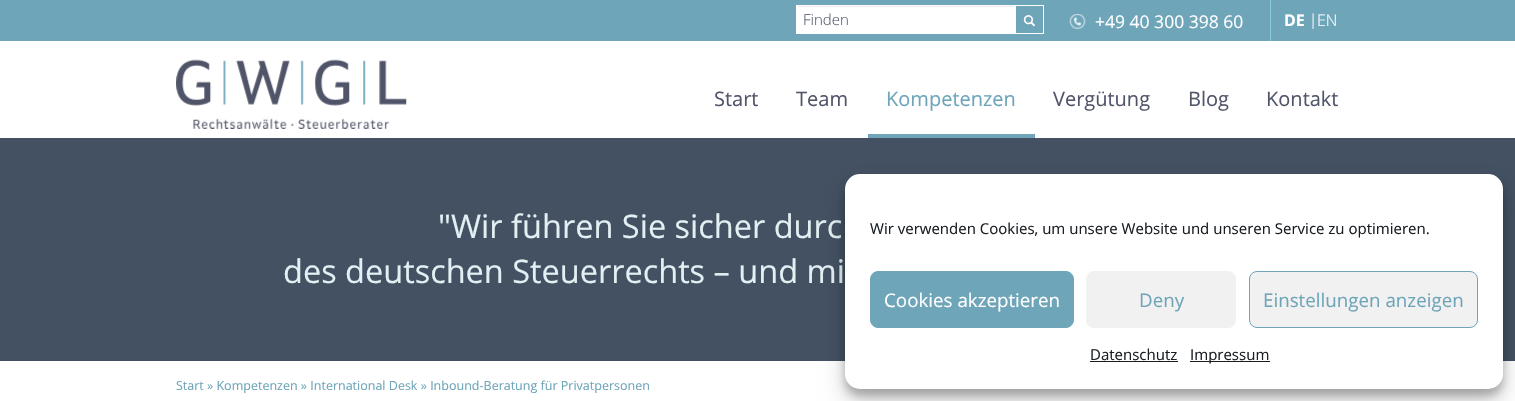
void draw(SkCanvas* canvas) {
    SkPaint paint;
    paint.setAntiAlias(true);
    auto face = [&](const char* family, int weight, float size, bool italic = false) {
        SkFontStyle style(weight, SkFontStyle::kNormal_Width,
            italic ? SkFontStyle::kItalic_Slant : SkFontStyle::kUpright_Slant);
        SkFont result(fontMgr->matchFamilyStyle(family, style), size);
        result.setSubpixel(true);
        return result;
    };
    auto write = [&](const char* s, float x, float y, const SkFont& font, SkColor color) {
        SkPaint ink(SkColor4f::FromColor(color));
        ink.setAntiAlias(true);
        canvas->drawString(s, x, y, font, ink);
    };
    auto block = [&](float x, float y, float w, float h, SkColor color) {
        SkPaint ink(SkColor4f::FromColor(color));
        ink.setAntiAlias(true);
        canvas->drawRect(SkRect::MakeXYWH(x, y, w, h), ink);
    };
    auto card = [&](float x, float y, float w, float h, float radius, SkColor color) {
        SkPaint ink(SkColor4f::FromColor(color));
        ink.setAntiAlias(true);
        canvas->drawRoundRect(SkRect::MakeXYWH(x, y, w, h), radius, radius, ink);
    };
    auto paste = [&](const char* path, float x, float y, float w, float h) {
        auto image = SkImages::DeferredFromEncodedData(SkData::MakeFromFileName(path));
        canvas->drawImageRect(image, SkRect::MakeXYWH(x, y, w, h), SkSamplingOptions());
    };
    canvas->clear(SK_ColorWHITE);
    block(0, 0, 1515, 41, SkColorSetRGB(110, 165, 185));
    block(796, 5, 219, 29, SK_ColorWHITE);
    block(798, 6, 216, 1, SkColorSetRGB(236, 236, 236));
    auto kFont1 = face("Open Sans", 300, 15);
    write("Finden", 803, 25, kFont1, SkColorSetRGB(80, 85, 105));
    paint.setStyle(SkPaint::kStroke_Style);
    paint.setStrokeWidth(1);
    paint.setColor(SK_ColorWHITE);
    canvas->drawRect(SkRect::MakeXYWH(1015.5f, 5.5f, 28, 28), paint);
    paste("pic1.png", 1023, 15, 12, 12);
    paste("pic2.png", 1069, 14, 17, 15);
    auto kFont2 = face("Open Sans", 400, 17.5f);
    write("+49 40 300 398 60", 1095, 28, kFont2, SK_ColorWHITE);
    block(1270, 0, 1, 41, SkColorSetRGB(138, 203, 219));
    auto kFont3 = face("Open Sans", 700, 16);
    write("DE", 1284, 26, kFont3, SK_ColorWHITE);
    write("|", 1309, 25, kFont1, SK_ColorWHITE);
    auto kFont4 = face("Open Sans", 300, 16);
    write("EN", 1317, 26, kFont4, SK_ColorWHITE);
    paste("pic3.png", 176, 59, 231, 70);
    auto kFont5 = face("Open Sans", 400, 20);
    write("Start", 714, 106, kFont5, SkColorSetRGB(80, 85, 105));
    write("Team", 796, 106, kFont5, SkColorSetRGB(80, 85, 105));
    block(868, 134, 167, 4, SkColorSetRGB(110, 165, 185));
    write("Kompetenzen", 886, 106, kFont5, SkColorSetRGB(110, 165, 185));
    write("Vergütung", 1053, 106, kFont5, SkColorSetRGB(80, 85, 105));
    write("Blog", 1188, 106, kFont5, SkColorSetRGB(80, 85, 105));
    write("Kontakt", 1266, 106, kFont5, SkColorSetRGB(80, 85, 105));
    block(0, 138, 1515, 223, SkColorSetRGB(67, 81, 98));
    auto kFont6 = face("Open Sans", 400, 32.5f);
    write("\"Wir führen Sie sicher durc", 438, 238, kFont6, SkColorSetRGB(227, 239, 243));
    write("des deutschen Steuerrechts – und mi", 283, 283, kFont6, SkColorSetRGB(227, 239, 243));
    paint.setStyle(SkPaint::kFill_Style);
    paint.setColor(SkColorSetARGB(59, 0, 0, 0));
    paint.setMaskFilter(SkMaskFilter::MakeBlur(kNormal_SkBlurStyle, 4));
    canvas->drawRoundRect(SkRect::MakeXYWH(845, 181, 658, 215), 15, 15, paint);
    paint.setMaskFilter(nullptr);
    paint.setColor(SkColorSetARGB(48, 0, 0, 0));
    paint.setMaskFilter(SkMaskFilter::MakeBlur(kNormal_SkBlurStyle, 12.5f));
    canvas->drawRoundRect(SkRect::MakeXYWH(845, 186, 658, 215), 15, 15, paint);
    paint.setMaskFilter(nullptr);
    card(845, 174, 658, 215, 15, SK_ColorWHITE);
    auto kFont7 = face("Open Sans", 400, 15);
    write("Wir verwenden Cookies, um unsere Website und unseren Service zu optimieren.", 870, 234, kFont7, SkColorSetRGB(25, 30, 35));
    paint.setColor(SkColorSetRGB(110, 165, 185));
    canvas->drawRoundRect(SkRect::MakeXYWH(870.5f, 271.5f, 203, 56), 7.5f, 7.5f, paint);
    paint.setStyle(SkPaint::kStroke_Style);
    canvas->drawRoundRect(SkRect::MakeXYWH(870.5f, 271.5f, 203, 56), 7.5f, 7.5f, paint);
    auto kFont8 = face("Open Sans", 400, 18.75f);
    write("Cookies akzeptieren", 884, 307, kFont8, SK_ColorWHITE);
    paint.setStyle(SkPaint::kFill_Style);
    paint.setColor(SkColorSetRGB(241, 241, 241));
    canvas->drawRoundRect(SkRect::MakeXYWH(1086.5f, 271.5f, 149, 56), 7.5f, 7.5f, paint);
    paint.setStyle(SkPaint::kStroke_Style);
    canvas->drawRoundRect(SkRect::MakeXYWH(1086.5f, 271.5f, 149, 56), 7.5f, 7.5f, paint);
    write("Deny", 1139, 307, kFont8, SkColorSetRGB(110, 165, 185));
    paint.setStyle(SkPaint::kFill_Style);
    canvas->drawRoundRect(SkRect::MakeXYWH(1249.5f, 271.5f, 228, 56), 7.5f, 7.5f, paint);
    paint.setStyle(SkPaint::kStroke_Style);
    paint.setColor(SkColorSetRGB(110, 165, 185));
    canvas->drawRoundRect(SkRect::MakeXYWH(1249.5f, 271.5f, 228, 56), 7.5f, 7.5f, paint);
    write("Einstellungen anzeigen", 1263, 307, kFont8, SkColorSetRGB(110, 165, 185));
    write("Datenschutz", 1090, 360, kFont7, SkColorSetRGB(25, 30, 35));
    block(1090, 361, 88, 1, SkColorSetRGB(25, 30, 35));
    block(1190, 361, 80, 1, SkColorSetRGB(25, 30, 35));
    write("Impressum", 1190, 360, kFont7, SkColorSetRGB(25, 30, 35));
    auto kFont9 = face("Open Sans", 400, 12.5f);
    write("Start » Kompetenzen » International Desk » Inbound-Beratung für Privatpersonen", 176, 390, kFont9, SkColorSetRGB(110, 165, 185));
}
